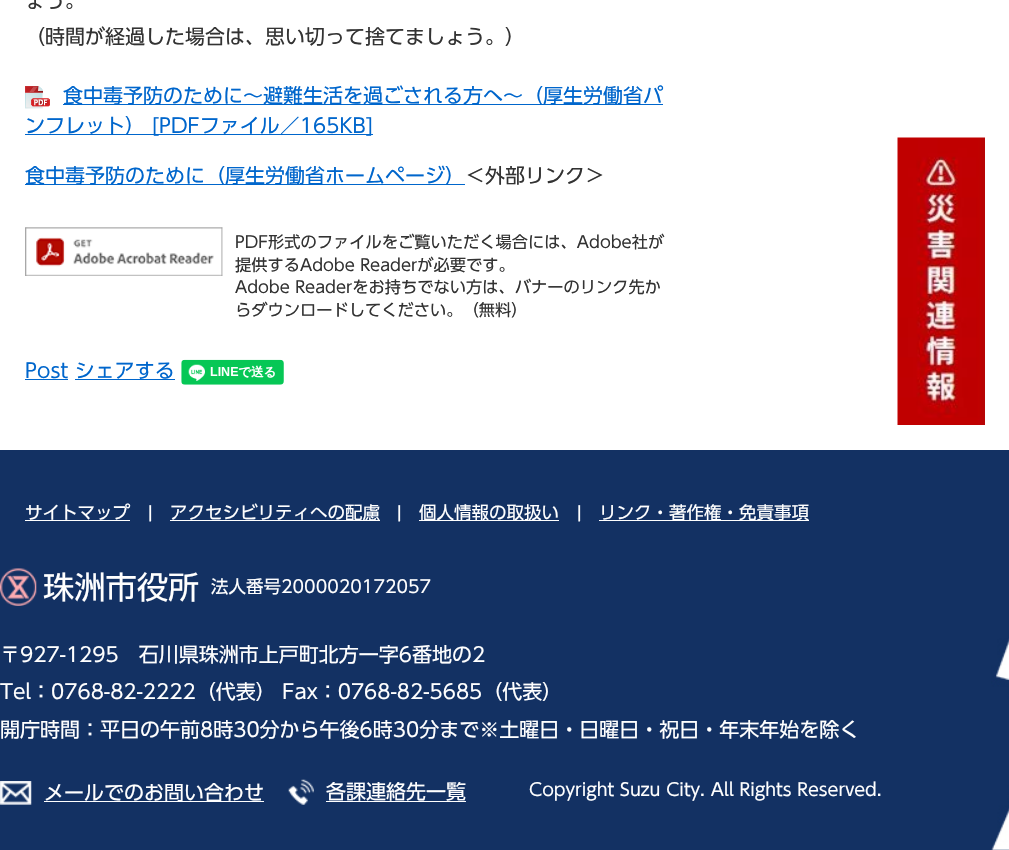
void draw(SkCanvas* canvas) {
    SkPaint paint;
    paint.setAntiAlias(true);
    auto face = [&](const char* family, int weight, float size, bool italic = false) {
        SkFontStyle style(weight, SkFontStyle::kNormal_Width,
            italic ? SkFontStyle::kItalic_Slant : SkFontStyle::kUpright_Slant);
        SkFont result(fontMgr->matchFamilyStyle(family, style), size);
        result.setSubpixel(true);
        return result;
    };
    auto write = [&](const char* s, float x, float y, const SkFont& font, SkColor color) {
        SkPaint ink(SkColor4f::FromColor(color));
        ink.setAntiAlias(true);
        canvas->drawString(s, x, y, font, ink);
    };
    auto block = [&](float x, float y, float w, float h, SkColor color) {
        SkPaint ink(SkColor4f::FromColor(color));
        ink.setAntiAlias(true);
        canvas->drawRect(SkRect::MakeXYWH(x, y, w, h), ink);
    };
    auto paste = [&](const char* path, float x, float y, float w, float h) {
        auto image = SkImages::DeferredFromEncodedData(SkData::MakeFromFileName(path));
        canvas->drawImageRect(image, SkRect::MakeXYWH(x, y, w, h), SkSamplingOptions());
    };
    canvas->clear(SK_ColorWHITE);
    auto kFont1 = face("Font", 400, 20);
    write("ょう。", 25, 8, kFont1, SkColorSetRGB(51, 51, 51));
    write("（時間が経過した場合は、思い切って捨てましょう。）", 25, 44, kFont1, SkColorSetRGB(51, 51, 51));
    paste("pic1.png", 25, 86, 25, 23);
    block(63, 104, 600, 1, SkColorSetRGB(0, 102, 204));
    write("食中毒予防のために～避難生活を過ごされる方へ～（厚生労働省パ", 63, 103, kFont1, SkColorSetRGB(0, 102, 204));
    block(25, 134, 348, 1, SkColorSetRGB(0, 102, 204));
    write("ンフレット） [PDFファイル／165KB]", 25, 133, kFont1, SkColorSetRGB(0, 102, 204));
    block(25, 184, 440, 1, SkColorSetRGB(0, 102, 204));
    write("食中毒予防のために（厚生労働省ホームページ）", 25, 183, kFont1, SkColorSetRGB(0, 102, 204));
    write("＜外部リンク＞", 465, 183, kFont1, SkColorSetRGB(51, 51, 51));
    paste("pic2.png", 25, 227, 198, 49);
    auto kFont2 = face("Font", 400, 16.25f);
    write("PDF形式のファイルをご覧いただく場合には、Adobe社が", 235, 248, kFont2, SkColorSetRGB(51, 51, 51));
    write("提供するAdobe Readerが必要です。", 235, 271, kFont2, SkColorSetRGB(51, 51, 51));
    write("Adobe Readerをお持ちでない方は、バナーのリンク先か", 235, 293, kFont2, SkColorSetRGB(51, 51, 51));
    write("らダウンロードしてください。（無料）", 235, 316, kFont2, SkColorSetRGB(51, 51, 51));
    write("Post シェアする", 25, 378, kFont1, SkColorSetRGB(0, 102, 204));
    block(25, 379, 43, 1, SkColorSetRGB(0, 102, 204));
    paste("pic3.png", 181, 359, 103, 26);
    block(75, 379, 100, 1, SkColorSetRGB(0, 102, 204));
    paste("pic4.png", 897, 137, 88, 288);
    block(0, 450, 1009, 400, SkColorSetRGB(19, 49, 99));
    paste("pic5.png", 991, 638, 18, 212);
    auto kFont3 = face("Font", 400, 17.5f);
    write("サイトマップ", 25, 519, kFont3, SK_ColorWHITE);
    block(25, 520, 105, 1, SK_ColorWHITE);
    write("|", 148, 519, kFont3, SK_ColorWHITE);
    block(170, 520, 210, 1, SK_ColorWHITE);
    write("アクセシビリティへの配慮", 170, 519, kFont3, SK_ColorWHITE);
    write("|", 397, 519, kFont3, SK_ColorWHITE);
    block(419, 520, 140, 1, SK_ColorWHITE);
    write("個人情報の取扱い", 419, 519, kFont3, SK_ColorWHITE);
    write("|", 577, 519, kFont3, SK_ColorWHITE);
    block(599, 520, 210, 1, SK_ColorWHITE);
    write("リンク・著作権・免責事項", 599, 519, kFont3, SK_ColorWHITE);
    paste("pic6.png", 0, 568, 37, 38);
    auto kFont4 = face("Font", 400, 31.25f);
    write("珠洲市役所", 43, 599, kFont4, SK_ColorWHITE);
    write("法人番号2000020172057", 211, 593, kFont3, SK_ColorWHITE);
    write("〒927-1295　石川県珠洲市上戸町北方一字6番地の2", 0, 662, kFont1, SK_ColorWHITE);
    write("Tel：0768-82-2222（代表） Fax：0768-82-5685（代表）", 0, 699, kFont1, SK_ColorWHITE);
    write("開庁時間：平日の午前8時30分から午後6時30分まで※土曜日・日曜日・祝日・年末年始を除く", 0, 737, kFont1, SK_ColorWHITE);
    paste("pic7.png", 0, 781, 32, 24);
    block(44, 801, 220, 1, SK_ColorWHITE);
    write("メールでのお問い合わせ", 44, 800, kFont1, SK_ColorWHITE);
    paste("pic8.png", 288, 779, 26, 26);
    write("各課連絡先一覧", 326, 799, kFont1, SK_ColorWHITE);
    block(326, 801, 140, 1, SK_ColorWHITE);
    write("Copyright Suzu City. All Rights Reserved.", 529, 796, kFont3, SK_ColorWHITE);
}
